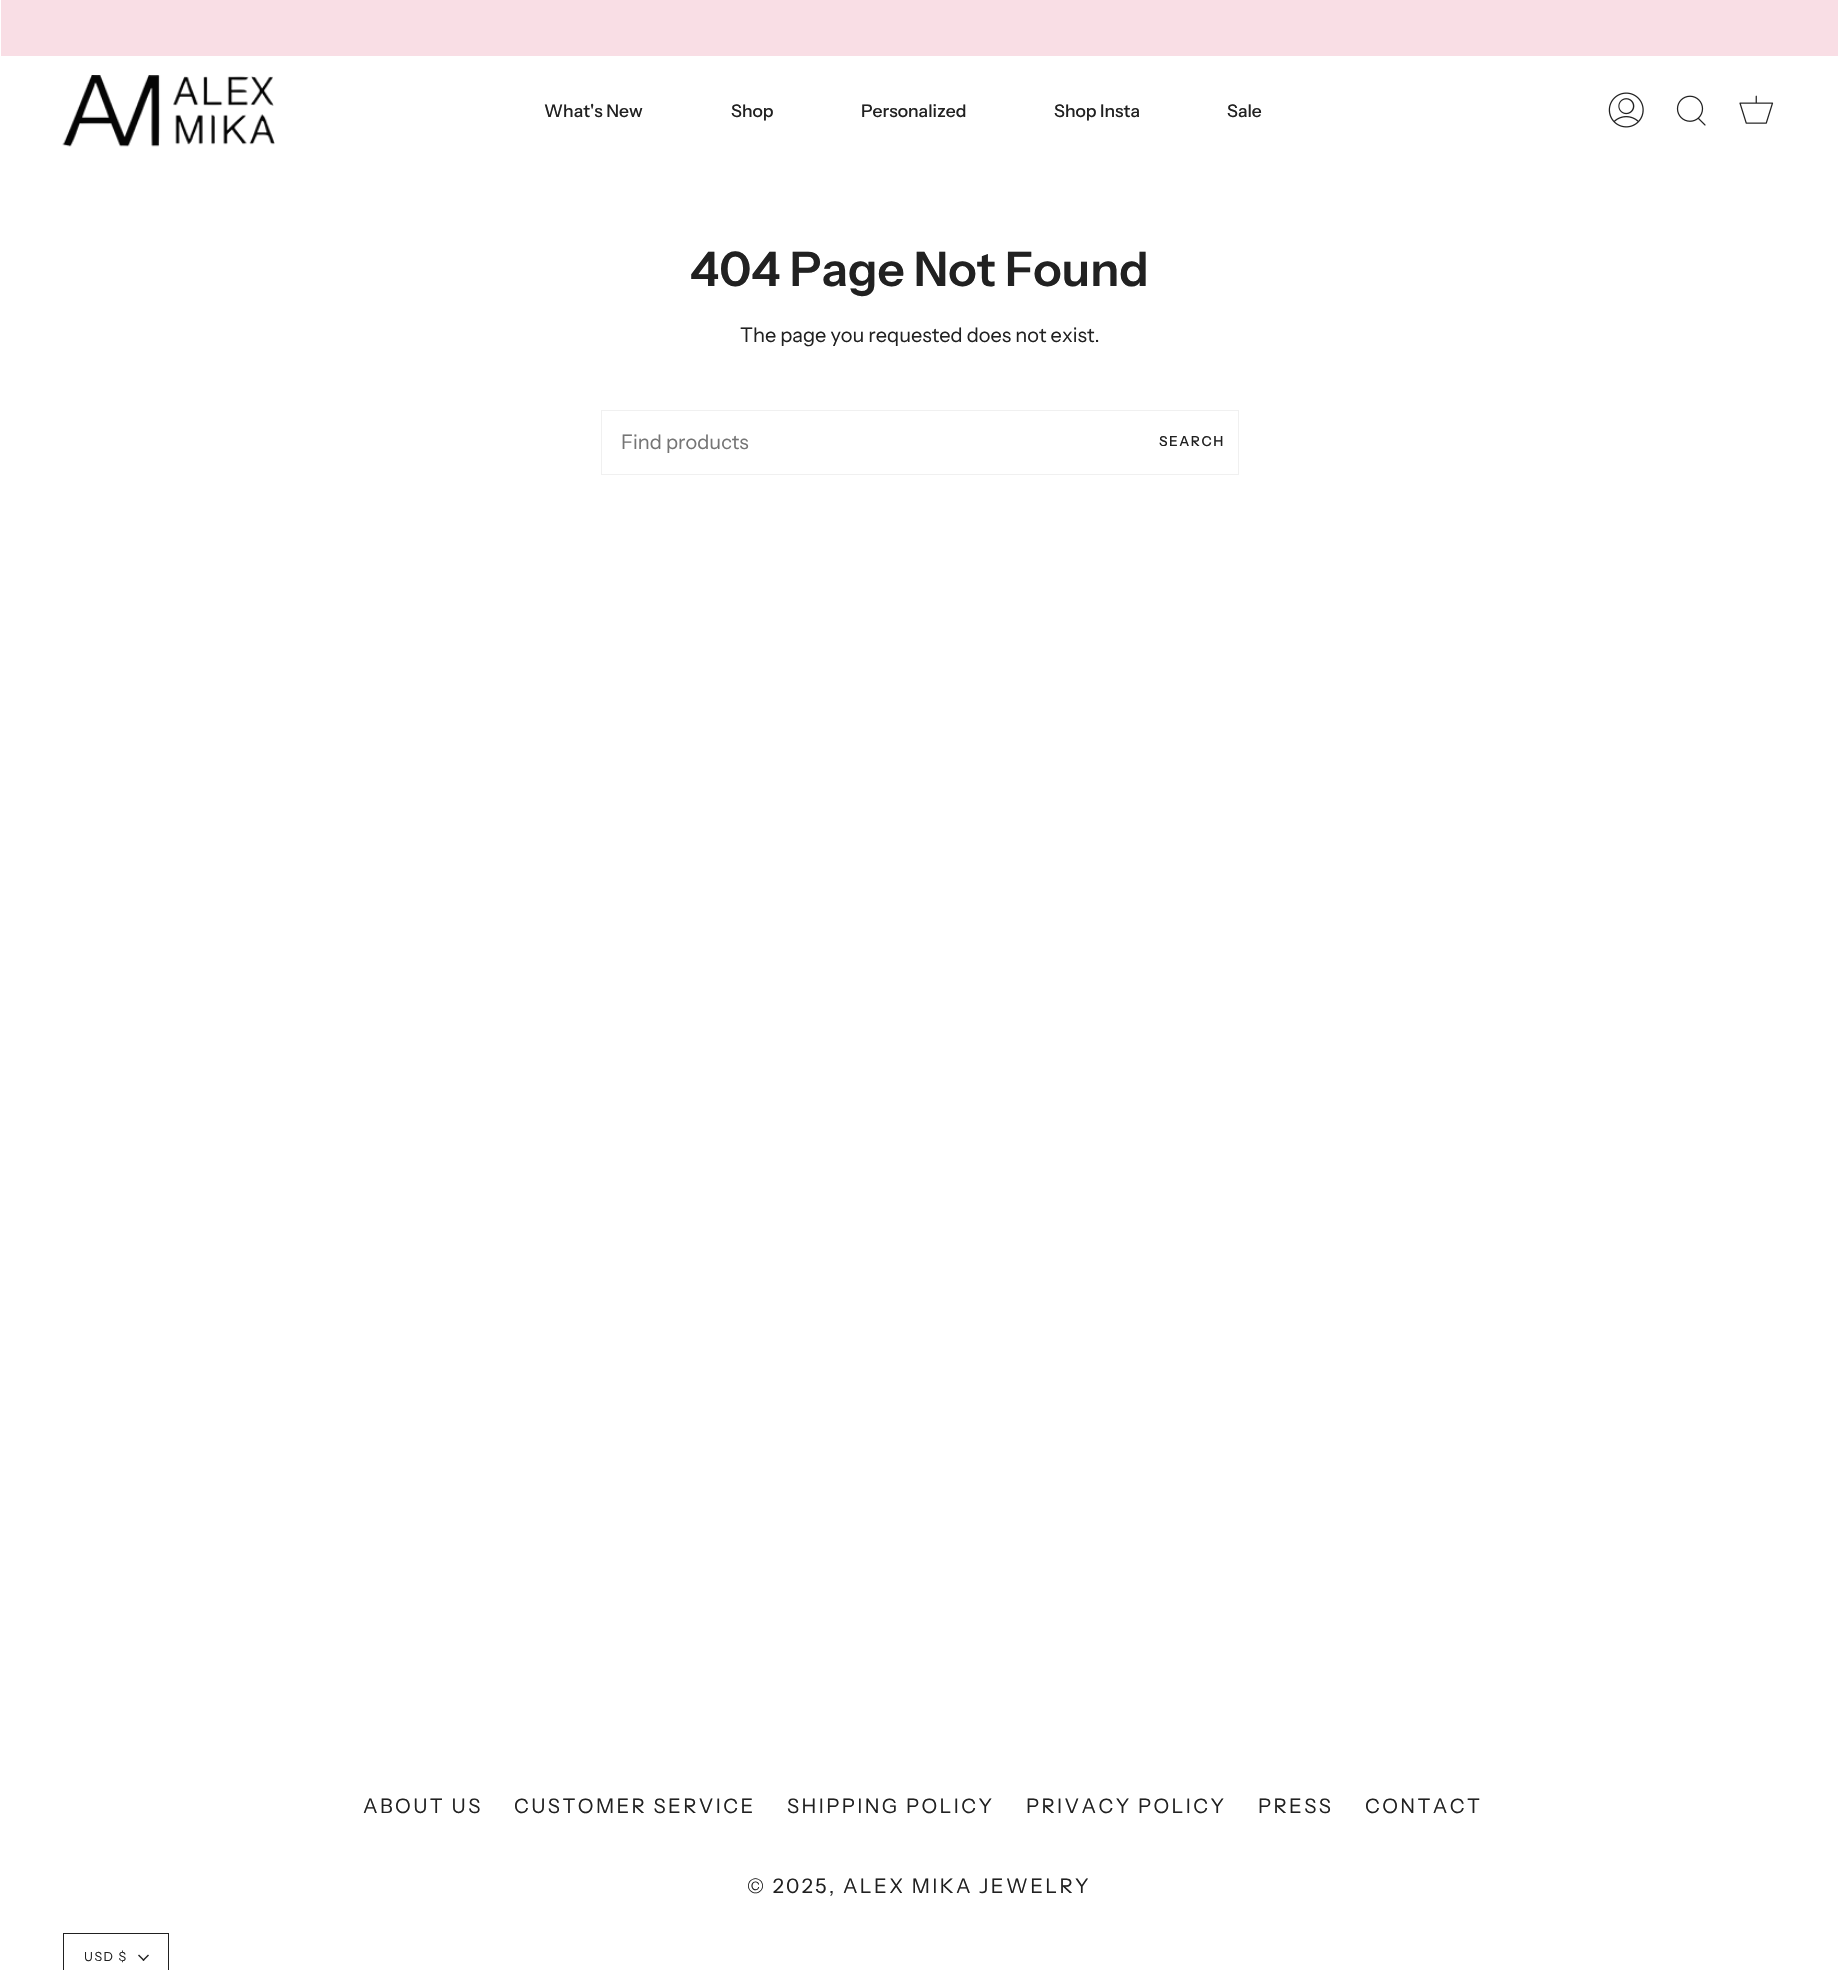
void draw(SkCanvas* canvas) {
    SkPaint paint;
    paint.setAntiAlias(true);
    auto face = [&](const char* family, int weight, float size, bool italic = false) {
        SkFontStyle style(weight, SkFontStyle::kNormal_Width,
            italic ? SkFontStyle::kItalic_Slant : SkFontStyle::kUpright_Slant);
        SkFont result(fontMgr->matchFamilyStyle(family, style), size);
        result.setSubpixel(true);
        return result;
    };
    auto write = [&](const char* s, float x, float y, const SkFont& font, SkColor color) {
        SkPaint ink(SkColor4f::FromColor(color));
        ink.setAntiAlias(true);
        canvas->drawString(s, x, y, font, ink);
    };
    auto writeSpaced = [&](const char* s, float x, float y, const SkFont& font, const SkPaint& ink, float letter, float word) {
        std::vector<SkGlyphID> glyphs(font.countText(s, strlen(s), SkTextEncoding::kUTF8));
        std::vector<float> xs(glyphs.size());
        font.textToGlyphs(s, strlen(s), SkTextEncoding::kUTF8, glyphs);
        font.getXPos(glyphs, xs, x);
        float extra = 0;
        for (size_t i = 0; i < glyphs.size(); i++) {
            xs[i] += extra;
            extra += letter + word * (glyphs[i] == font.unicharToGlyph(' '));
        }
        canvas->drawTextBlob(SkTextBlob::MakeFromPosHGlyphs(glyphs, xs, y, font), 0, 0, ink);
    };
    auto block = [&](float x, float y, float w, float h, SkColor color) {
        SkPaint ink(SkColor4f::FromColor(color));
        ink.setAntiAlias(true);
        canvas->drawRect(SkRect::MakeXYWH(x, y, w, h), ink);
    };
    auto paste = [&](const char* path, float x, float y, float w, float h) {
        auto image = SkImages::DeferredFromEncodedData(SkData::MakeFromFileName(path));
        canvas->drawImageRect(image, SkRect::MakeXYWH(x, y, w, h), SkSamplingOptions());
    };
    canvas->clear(SK_ColorWHITE);
    block(1, 0, 1837, 56, SkColorSetRGB(249, 222, 229));
    paste("pic1.png", 62, 75, 213, 72);
    auto kFont1 = face("Instrument Sans", 500, 17.5f);
    write("What's New", 544, 117, kFont1, SkColorSetRGB(33, 33, 33));
    write("Shop", 731, 117, kFont1, SkColorSetRGB(33, 33, 33));
    write("Personalized", 861, 117, kFont1, SkColorSetRGB(33, 33, 33));
    write("Shop Insta", 1054, 117, kFont1, SkColorSetRGB(33, 33, 33));
    write("Sale", 1227, 117, kFont1, SkColorSetRGB(33, 33, 33));
    paste("pic2.png", 1608, 92, 36, 36);
    paste("pic3.png", 1676, 95, 30, 31);
    paste("pic4.png", 1739, 95, 35, 29);
    auto kFont2 = face("Instrument Sans", 600, 47.5f);
    write("404 Page Not Found", 690, 286, kFont2, SkColorSetRGB(33, 33, 33));
    auto kFont3 = face("Instrument Sans", 400, 20);
    write("The page you requested does not exist.", 740, 342, kFont3, SkColorSetRGB(33, 33, 33));
    paint.setStyle(SkPaint::kStroke_Style);
    paint.setStrokeWidth(1);
    paint.setColor(SkColorSetRGB(240, 240, 240));
    canvas->drawRect(SkRect::MakeXYWH(601.5f, 410.5f, 637, 64), paint);
    write("Find products", 621, 449, kFont3, SkColorSetRGB(117, 117, 117));
    auto kFont4 = face("Instrument Sans", 500, 13.75f);
    paint.setStyle(SkPaint::kFill_Style);
    paint.setColor(SkColorSetRGB(33, 33, 33));
    writeSpaced("SEARCH", 1159, 446, kFont4, paint, 1.5f, 0);
    writeSpaced("ABOUT US", 363, 1813, kFont3, paint, 2.4f, 0);
    writeSpaced("CUSTOMER SERVICE", 514, 1813, kFont3, paint, 2.4f, 0);
    writeSpaced("SHIPPING POLICY", 787, 1813, kFont3, paint, 2.4f, 0);
    writeSpaced("PRIVACY POLICY", 1026, 1813, kFont3, paint, 2.4f, 0);
    writeSpaced("PRESS", 1258, 1813, kFont3, paint, 2.4f, 0);
    writeSpaced("CONTACT", 1365, 1813, kFont3, paint, 2.4f, 0);
    writeSpaced("© 2025, ALEX MIKA JEWELRY", 747, 1893, kFont3, paint, 2.4f, 0);
    paint.setStyle(SkPaint::kStroke_Style);
    canvas->drawRect(SkRect::MakeXYWH(63.5f, 1933.5f, 105, 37), paint);
    auto kFont5 = face("Instrument Sans", 400, 12.5f);
    paint.setStyle(SkPaint::kFill_Style);
    writeSpaced("USD $", 84, 1961, kFont5, paint, 1.5f, 0);
    canvas->drawPath(SkPathBuilder().moveTo(142.5f, 1960).lineTo(148, 1954.5f).lineTo(149, 1955.5f).lineTo(143.5f, 1961).close().detach(), paint);
    canvas->drawPath(SkPathBuilder().moveTo(138, 1955.5f).lineTo(139, 1954.5f).lineTo(144.5f, 1960).lineTo(143.5f, 1961).close().detach(), paint);
}
